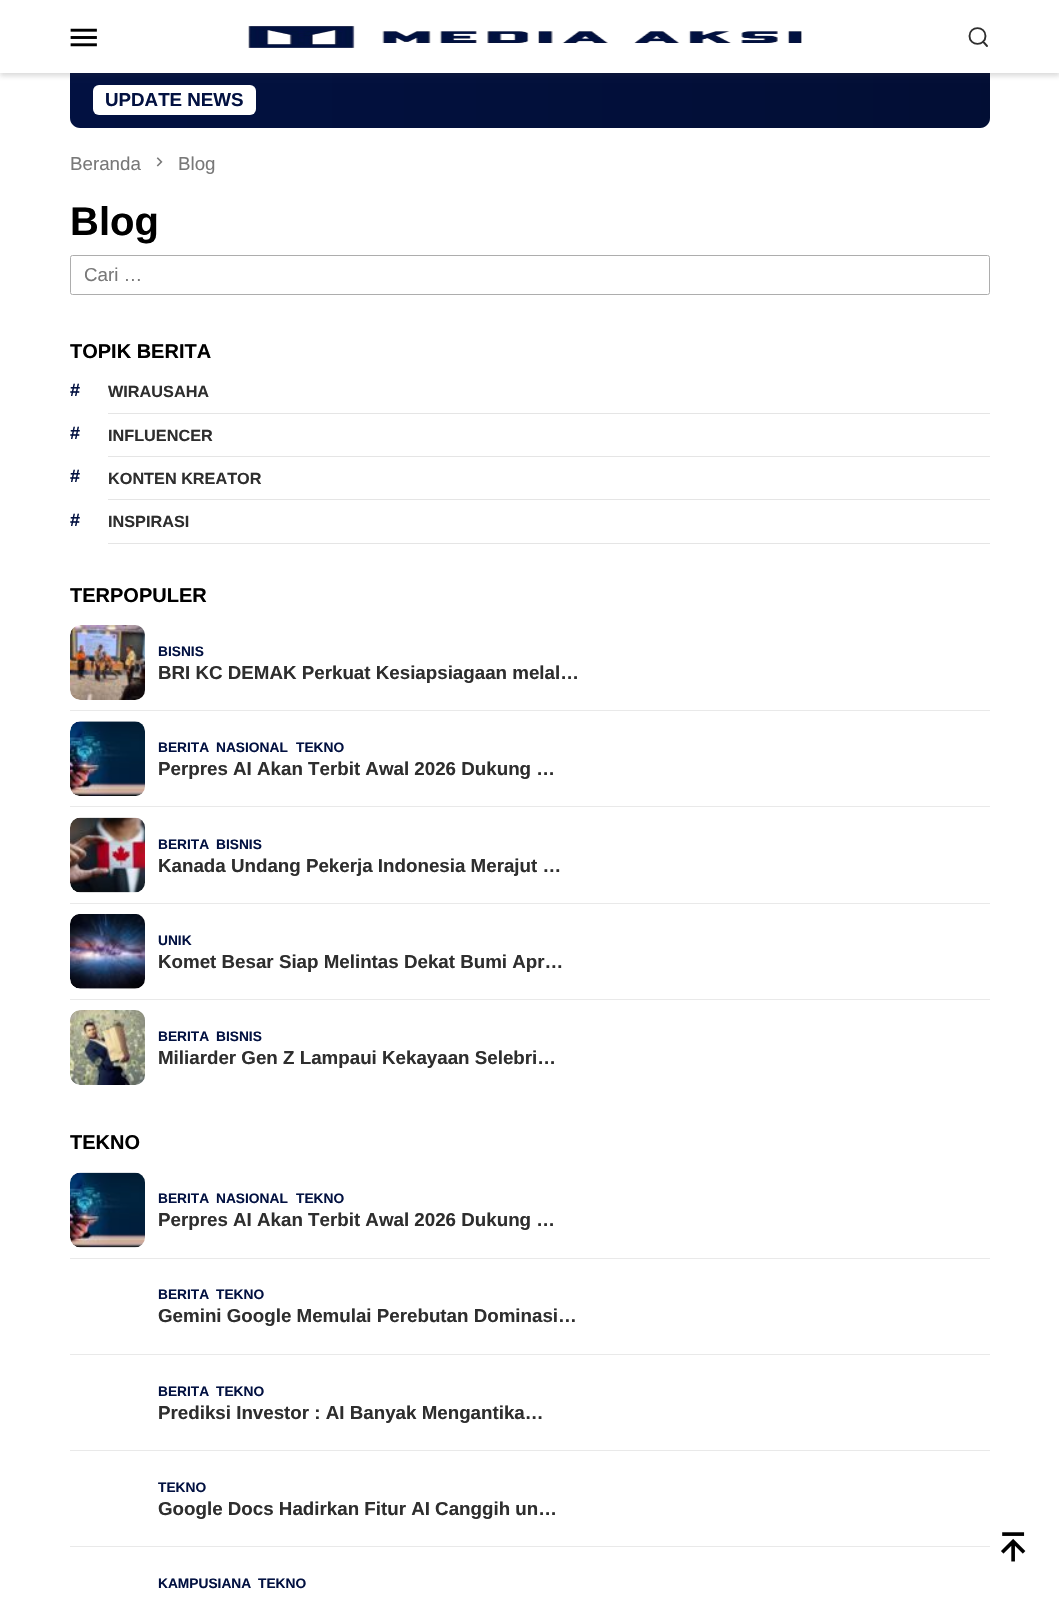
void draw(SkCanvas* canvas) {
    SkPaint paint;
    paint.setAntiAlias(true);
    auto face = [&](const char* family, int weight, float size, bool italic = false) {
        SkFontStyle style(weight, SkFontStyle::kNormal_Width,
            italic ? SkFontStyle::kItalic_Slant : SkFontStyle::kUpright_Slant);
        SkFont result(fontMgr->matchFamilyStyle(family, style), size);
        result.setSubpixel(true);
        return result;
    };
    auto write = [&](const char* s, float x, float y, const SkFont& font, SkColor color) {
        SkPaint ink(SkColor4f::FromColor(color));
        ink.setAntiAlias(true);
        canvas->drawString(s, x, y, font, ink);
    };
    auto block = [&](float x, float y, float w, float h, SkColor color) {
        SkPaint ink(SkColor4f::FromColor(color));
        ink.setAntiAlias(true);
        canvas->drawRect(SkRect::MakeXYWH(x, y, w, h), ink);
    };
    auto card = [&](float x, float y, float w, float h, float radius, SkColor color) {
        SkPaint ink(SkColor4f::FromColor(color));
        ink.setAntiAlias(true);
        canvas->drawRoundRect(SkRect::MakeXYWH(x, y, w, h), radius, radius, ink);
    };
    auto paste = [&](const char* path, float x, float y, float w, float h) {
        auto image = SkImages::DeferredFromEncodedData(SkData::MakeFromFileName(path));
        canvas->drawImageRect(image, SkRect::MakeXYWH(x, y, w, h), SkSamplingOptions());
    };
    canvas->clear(SK_ColorWHITE);
    paint.setColor(SkColorSetRGB(2, 17, 65));
    canvas->drawPath(SkPathBuilder().moveTo(70, 73).lineTo(990, 73).lineTo(990, 118).cubicTo(990, 123.5f, 985.5f, 128, 980, 128).lineTo(80, 128).cubicTo(74.5f, 128, 70, 123.5f, 70, 118).close().detach(), paint);
    {
        const SkColor colors[] = {SkColorSetARGB(0, 0, 0, 0), SkColorSetARGB(51, 0, 0, 0)};
        const float stops[] = {0, 1};
        const SkPoint ends[] = {{70, 100}, {990, 100}};
        paint.setShader(SkGradientShader::MakeLinear(ends, colors, stops, 2, SkTileMode::kClamp));
        paint.setAlpha(255);
    }
    canvas->drawPath(SkPathBuilder().moveTo(70, 73).lineTo(990, 73).lineTo(990, 118).cubicTo(990, 123.5f, 985.5f, 128, 980, 128).lineTo(80, 128).cubicTo(74.5f, 128, 70, 123.5f, 70, 118).close().detach(), paint);
    paint.setShader(nullptr);
    paint.setColor(SkColorSetARGB(46, 52, 52, 52));
    paint.setMaskFilter(SkMaskFilter::MakeBlur(kNormal_SkBlurStyle, 2.5f));
    canvas->drawRect(SkRect::MakeXYWH(0, 4, 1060, 72), paint);
    paint.setMaskFilter(nullptr);
    block(0, 0, 1059, 73, SK_ColorWHITE);
    paste("pic1.png", 70, 28, 27, 19);
    paste("pic2.png", 248, 26, 554, 22);
    paint.setStyle(SkPaint::kStroke_Style);
    paint.setStrokeWidth(1.9f);
    paint.setStrokeCap(SkPaint::kRound_Cap);
    paint.setColor(SkColorSetRGB(46, 46, 46));
    canvas->drawPath(SkPathBuilder().moveTo(987, 46).lineTo(983, 41.5f).moveTo(985.5f, 36).cubicTo(985.5f, 46.5f, 969.5f, 46.5f, 969.5f, 36).cubicTo(969.5f, 25.5f, 985.5f, 25.5f, 985.5f, 36).close().detach(), paint);
    card(93, 85, 163, 30, 6, SK_ColorWHITE);
    auto kFont1 = face("Liberation Sans", 700, 18.75f);
    write("UPDATE NEWS", 105, 106, kFont1, SkColorSetRGB(2, 17, 65));
    auto kFont2 = face("Liberation Sans", 400, 18.75f);
    write("Beranda", 70, 170, kFont2, SkColorSetRGB(120, 120, 120));
    paste("pic3.png", 156, 157, 7, 10);
    write("Blog", 178, 170, kFont2, SkColorSetRGB(120, 120, 120));
    auto kFont3 = face("Liberation Sans", 700, 40);
    write("Blog", 70, 235, kFont3, SK_ColorBLACK);
    paint.setStrokeWidth(1);
    paint.setStrokeCap(SkPaint::kButt_Cap);
    paint.setColor(SkColorSetRGB(173, 173, 173));
    canvas->drawRoundRect(SkRect::MakeXYWH(70.5f, 255.5f, 919, 39), 2, 2, paint);
    write("Cari …", 84, 281, kFont2, SkColorSetRGB(120, 120, 120));
    auto kFont4 = face("Liberation Sans", 700, 20);
    write("TOPIK BERITA", 70, 358, kFont4, SK_ColorBLACK);
    auto kFont5 = face("Liberation Sans", 700, 18);
    write("#", 70, 396, kFont5, SkColorSetRGB(2, 17, 65));
    block(108, 413, 882, 1, SkColorSetRGB(229, 229, 229));
    auto kFont6 = face("Liberation Sans", 700, 16.25f);
    write("WIRAUSAHA", 108, 397, kFont6, SkColorSetRGB(46, 46, 46));
    write("#", 70, 439, kFont5, SkColorSetRGB(2, 17, 65));
    block(108, 456, 882, 1, SkColorSetRGB(229, 229, 229));
    write("INFLUENCER", 108, 441, kFont6, SkColorSetRGB(46, 46, 46));
    write("#", 70, 482, kFont5, SkColorSetRGB(2, 17, 65));
    block(108, 499, 882, 1, SkColorSetRGB(229, 229, 229));
    write("KONTEN KREATOR", 108, 484, kFont6, SkColorSetRGB(46, 46, 46));
    write("#", 70, 526, kFont5, SkColorSetRGB(2, 17, 65));
    block(108, 543, 882, 1, SkColorSetRGB(229, 229, 229));
    write("INSPIRASI", 108, 527, kFont6, SkColorSetRGB(46, 46, 46));
    write("TERPOPULER", 70, 602, kFont4, SK_ColorBLACK);
    block(70, 710, 920, 1, SkColorSetRGB(233, 233, 233));
    paste("pic4.png", 70, 625, 75, 75);
    auto kFont7 = face("Liberation Sans", 700, 13.75f);
    write("BISNIS", 158, 656, kFont7, SkColorSetRGB(2, 17, 65));
    write("BRI KC DEMAK Perkuat Kesiapsiagaan melal…", 158, 679, kFont1, SkColorSetRGB(46, 46, 46));
    block(70, 806, 920, 1, SkColorSetRGB(233, 233, 233));
    paste("pic5.png", 70, 721, 75, 75);
    write("BERITA", 158, 752, kFont7, SkColorSetRGB(2, 17, 65));
    write("NASIONAL", 216, 752, kFont7, SkColorSetRGB(2, 17, 65));
    write("TEKNO", 296, 752, kFont7, SkColorSetRGB(2, 17, 65));
    write("Perpres AI Akan Terbit Awal 2026 Dukung …", 158, 775, kFont1, SkColorSetRGB(46, 46, 46));
    block(70, 903, 920, 1, SkColorSetRGB(233, 233, 233));
    paste("pic6.png", 70, 817, 75, 76);
    write("BERITA", 158, 849, kFont7, SkColorSetRGB(2, 17, 65));
    write("BISNIS", 216, 849, kFont7, SkColorSetRGB(2, 17, 65));
    write("Kanada Undang Pekerja Indonesia Merajut …", 158, 872, kFont1, SkColorSetRGB(46, 46, 46));
    block(70, 999, 920, 1, SkColorSetRGB(233, 233, 233));
    paste("pic7.png", 70, 914, 75, 75);
    write("UNIK", 158, 945, kFont7, SkColorSetRGB(2, 17, 65));
    write("Komet Besar Siap Melintas Dekat Bumi Apr…", 158, 968, kFont1, SkColorSetRGB(46, 46, 46));
    paste("pic8.png", 70, 1010, 75, 75);
    write("BERITA", 158, 1041, kFont7, SkColorSetRGB(2, 17, 65));
    write("BISNIS", 216, 1041, kFont7, SkColorSetRGB(2, 17, 65));
    write("Miliarder Gen Z Lampaui Kekayaan Selebri…", 158, 1064, kFont1, SkColorSetRGB(46, 46, 46));
    write("TEKNO", 70, 1149, kFont4, SK_ColorBLACK);
    block(70, 1258, 920, 1, SkColorSetRGB(233, 233, 233));
    paste("pic9.png", 70, 1172, 75, 76);
    write("BERITA", 158, 1203, kFont7, SkColorSetRGB(2, 17, 65));
    write("NASIONAL", 216, 1203, kFont7, SkColorSetRGB(2, 17, 65));
    write("TEKNO", 296, 1203, kFont7, SkColorSetRGB(2, 17, 65));
    write("Perpres AI Akan Terbit Awal 2026 Dukung …", 158, 1226, kFont1, SkColorSetRGB(46, 46, 46));
    block(70, 1354, 920, 1, SkColorSetRGB(233, 233, 233));
    write("BERITA", 158, 1299, kFont7, SkColorSetRGB(2, 17, 65));
    write("TEKNO", 216, 1299, kFont7, SkColorSetRGB(2, 17, 65));
    write("Gemini Google Memulai Perebutan Dominasi…", 158, 1322, kFont1, SkColorSetRGB(46, 46, 46));
    block(70, 1450, 920, 1, SkColorSetRGB(233, 233, 233));
    write("BERITA", 158, 1396, kFont7, SkColorSetRGB(2, 17, 65));
    write("TEKNO", 216, 1396, kFont7, SkColorSetRGB(2, 17, 65));
    write("Prediksi Investor : AI Banyak Mengantika…", 158, 1419, kFont1, SkColorSetRGB(46, 46, 46));
    block(70, 1546, 920, 1, SkColorSetRGB(233, 233, 233));
    write("TEKNO", 158, 1492, kFont7, SkColorSetRGB(2, 17, 65));
    write("Google Docs Hadirkan Fitur AI Canggih un…", 158, 1515, kFont1, SkColorSetRGB(46, 46, 46));
    write("KAMPUSIANA", 158, 1588, kFont7, SkColorSetRGB(2, 17, 65));
    write("TEKNO", 258, 1588, kFont7, SkColorSetRGB(2, 17, 65));
    paste("pic10.png", 1001, 1532, 25, 30);
}
